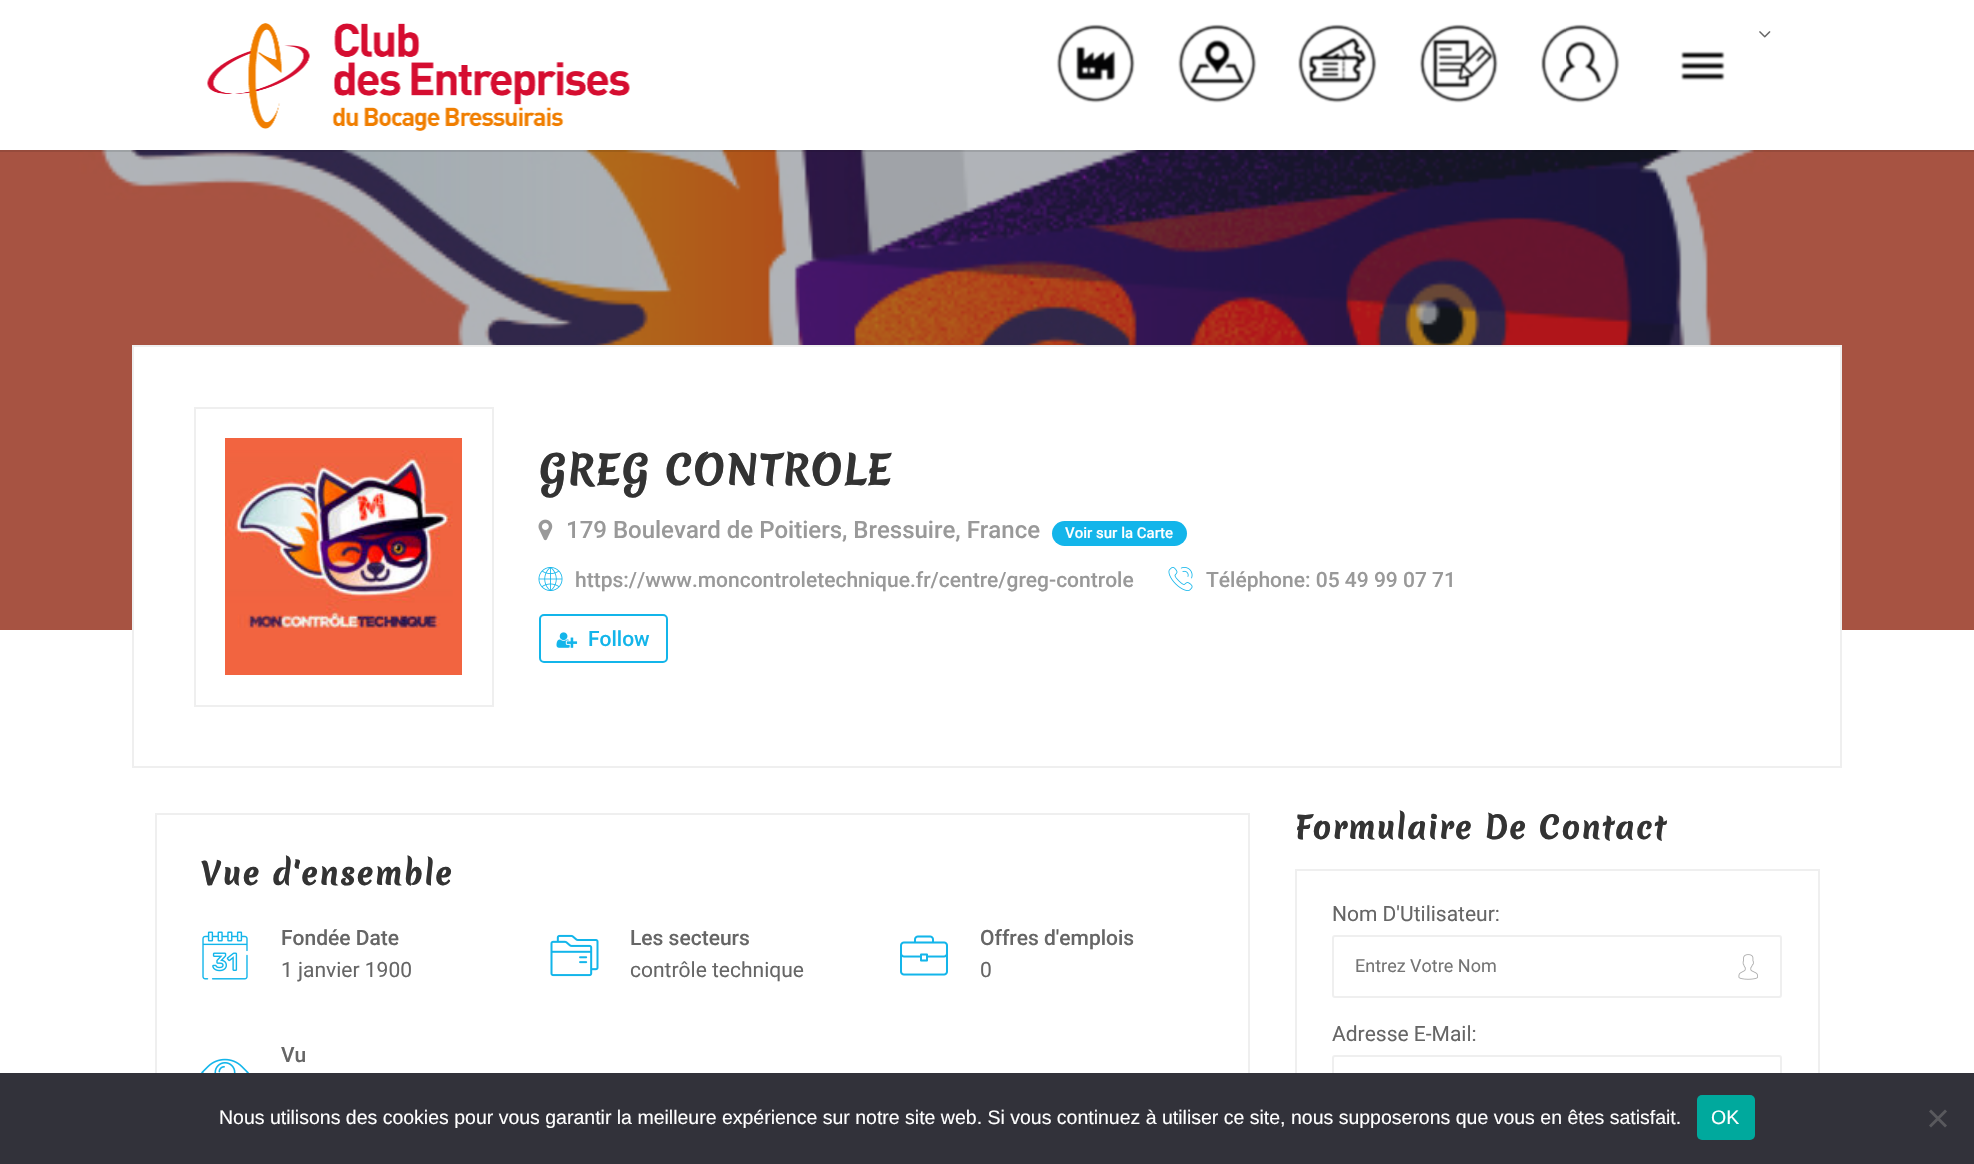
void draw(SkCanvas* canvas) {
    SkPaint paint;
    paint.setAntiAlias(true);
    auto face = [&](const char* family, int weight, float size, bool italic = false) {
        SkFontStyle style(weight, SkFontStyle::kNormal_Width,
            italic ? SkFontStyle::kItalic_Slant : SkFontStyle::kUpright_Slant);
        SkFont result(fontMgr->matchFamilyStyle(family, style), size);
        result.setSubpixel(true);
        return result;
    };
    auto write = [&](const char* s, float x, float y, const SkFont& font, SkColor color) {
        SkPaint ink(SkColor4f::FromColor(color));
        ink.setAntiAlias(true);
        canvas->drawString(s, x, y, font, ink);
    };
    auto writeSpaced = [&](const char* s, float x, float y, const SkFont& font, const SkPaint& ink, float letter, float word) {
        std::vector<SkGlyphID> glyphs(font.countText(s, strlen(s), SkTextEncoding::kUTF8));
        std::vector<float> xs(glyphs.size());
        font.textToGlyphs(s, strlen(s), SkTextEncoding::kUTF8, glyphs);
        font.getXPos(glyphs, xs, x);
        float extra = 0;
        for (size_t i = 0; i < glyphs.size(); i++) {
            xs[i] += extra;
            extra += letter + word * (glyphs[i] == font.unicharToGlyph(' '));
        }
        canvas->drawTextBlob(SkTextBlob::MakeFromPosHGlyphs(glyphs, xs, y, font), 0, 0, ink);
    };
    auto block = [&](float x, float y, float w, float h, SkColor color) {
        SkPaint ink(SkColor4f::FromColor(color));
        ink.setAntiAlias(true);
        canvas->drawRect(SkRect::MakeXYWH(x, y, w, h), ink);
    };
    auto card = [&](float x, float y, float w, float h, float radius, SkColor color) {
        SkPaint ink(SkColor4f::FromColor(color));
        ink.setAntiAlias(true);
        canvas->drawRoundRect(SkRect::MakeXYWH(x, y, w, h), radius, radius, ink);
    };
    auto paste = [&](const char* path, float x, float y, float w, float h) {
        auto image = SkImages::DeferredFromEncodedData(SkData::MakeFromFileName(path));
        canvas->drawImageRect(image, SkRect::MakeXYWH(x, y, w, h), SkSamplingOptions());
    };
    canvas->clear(SK_ColorWHITE);
    paste("pic9.png", 0, 150, 1974, 480);
    block(0, 150, 1974, 2, SkColorSetARGB(26, 0, 0, 0));
    paste("pic1.png", 207, 23, 423, 108);
    paste("pic2.png", 1056, 24, 79, 79);
    paste("pic3.png", 1178, 24, 79, 79);
    paste("pic4.png", 1298, 24, 79, 79);
    paste("pic5.png", 1419, 24, 79, 79);
    paste("pic6.png", 1541, 24, 79, 79);
    paste("pic7.png", 1759, 31, 12, 7);
    paste("pic8.png", 1680, 51, 45, 30);
    block(134, 347, 1706, 283, SK_ColorWHITE);
    paint.setStyle(SkPaint::kStroke_Style);
    paint.setStrokeWidth(2);
    paint.setColor(SkColorSetRGB(239, 239, 239));
    canvas->drawRect(SkRect::MakeXYWH(133, 346, 1708, 421), paint);
    canvas->drawRect(SkRect::MakeXYWH(195, 408, 298, 298), paint);
    paste("pic10.png", 225, 438, 237, 237);
    auto kFont1 = face("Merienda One", 700, 39);
    paint.setStyle(SkPaint::kFill_Style);
    paint.setColor(SkColorSetRGB(51, 51, 51));
    writeSpaced("GREG CONTROLE", 539, 485, kFont1, paint, 1.65f, 0);
    paste("pic11.png", 538, 519, 15, 22);
    auto kFont2 = face("Roboto", 500, 24);
    write("179 Boulevard de Poitiers, Bressuire, France", 566, 538, kFont2, SkColorSetRGB(153, 153, 153));
    card(1052, 521, 135, 25, 12.5f, SkColorSetRGB(19, 181, 234));
    auto kFont3 = face("Roboto", 500, 15);
    write("Voir sur la Carte", 1065, 538, kFont3, SK_ColorWHITE);
    paste("pic12.png", 538, 567, 25, 24);
    auto kFont4 = face("Roboto", 500, 21);
    write("https://www.moncontroletechnique.fr/centre/greg-controle", 575, 587, kFont4, SkColorSetRGB(153, 153, 153));
    paste("pic13.png", 1168, 567, 25, 24);
    write("Téléphone: 05 49 99 07 71", 1206, 587, kFont4, SkColorSetRGB(153, 153, 153));
    paint.setStyle(SkPaint::kStroke_Style);
    paint.setColor(SkColorSetRGB(19, 181, 234));
    canvas->drawRoundRect(SkRect::MakeXYWH(540, 615, 127, 47), 4, 4, paint);
    paste("pic14.png", 556, 632, 22, 16);
    write("Follow", 588, 646, kFont4, SkColorSetRGB(19, 181, 234));
    paint.setColor(SkColorSetRGB(239, 239, 239));
    canvas->drawRect(SkRect::MakeXYWH(156, 814, 1093, 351), paint);
    auto kFont5 = face("Merienda One", 700, 30);
    paint.setStyle(SkPaint::kFill_Style);
    paint.setColor(SkColorSetRGB(51, 51, 51));
    writeSpaced("Vue d'ensemble", 201, 885, kFont5, paint, 1.65f, 0);
    paste("pic15.png", 202, 931, 46, 49);
    write("Fondée Date", 281, 945, kFont4, SkColorSetRGB(102, 102, 102));
    auto kFont6 = face("Roboto", 400, 21);
    write("1 janvier 1900", 281, 977, kFont6, SkColorSetRGB(102, 102, 102));
    paste("pic16.png", 550, 934, 49, 43);
    write("Les secteurs", 630, 945, kFont4, SkColorSetRGB(102, 102, 102));
    write("contrôle technique", 630, 977, kFont6, SkColorSetRGB(102, 102, 102));
    paste("pic17.png", 900, 935, 48, 41);
    write("Offres d'emplois", 980, 945, kFont4, SkColorSetRGB(102, 102, 102));
    write("0", 980, 977, kFont6, SkColorSetRGB(102, 102, 102));
    write("Vu", 281, 1062, kFont4, SkColorSetRGB(102, 102, 102));
    paste("pic18.png", 201, 1058, 48, 15);
    writeSpaced("Formulaire De Contact", 1295, 839, kFont5, paint, 1.65f, 0);
    paint.setStyle(SkPaint::kStroke_Style);
    paint.setColor(SkColorSetRGB(239, 239, 239));
    canvas->drawRect(SkRect::MakeXYWH(1296, 870, 523, 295), paint);
    write("Nom D'Utilisateur:", 1332, 921, kFont6, SkColorSetRGB(102, 102, 102));
    canvas->drawRoundRect(SkRect::MakeXYWH(1333, 936, 448, 61), 2, 2, paint);
    auto kFont7 = face("Roboto", 400, 18);
    write("Entrez Votre Nom", 1355, 972, kFont7, SkColorSetRGB(117, 117, 117));
    paste("pic19.png", 1738, 954, 20, 26);
    write("Adresse E-Mail:", 1332, 1041, kFont6, SkColorSetRGB(102, 102, 102));
    canvas->drawRoundRect(SkRect::MakeXYWH(1333, 1056, 448, 61), 2, 2, paint);
    block(0, 1073, 1974, 91, SkColorSetRGB(50, 50, 58));
    auto kFont8 = face("Liberation Sans", 400, 19.5f);
    write("Nous utilisons des cookies pour vous garantir la meilleure expérience sur notre site web. Si vous continuez à utiliser ce site, nous supposerons que vous en êtes satisfait.", 219, 1124, kFont8, SK_ColorWHITE);
    card(1697, 1095, 58, 45, 5, SkColorSetRGB(0, 169, 157));
    write("OK", 1711, 1124, kFont8, SK_ColorWHITE);
    paint.setStyle(SkPaint::kFill_Style);
    paint.setColor(SkColorSetRGB(89, 89, 93));
    canvas->drawPath(SkPathBuilder().moveTo(1945, 1109.5f).lineTo(1947, 1111.5f).lineTo(1931, 1127.5f).lineTo(1929, 1125.5f).close().detach(), paint);
    canvas->drawPath(SkPathBuilder().moveTo(1929, 1111.5f).lineTo(1931, 1109.5f).lineTo(1947, 1125.5f).lineTo(1945, 1127.5f).close().detach(), paint);
}
